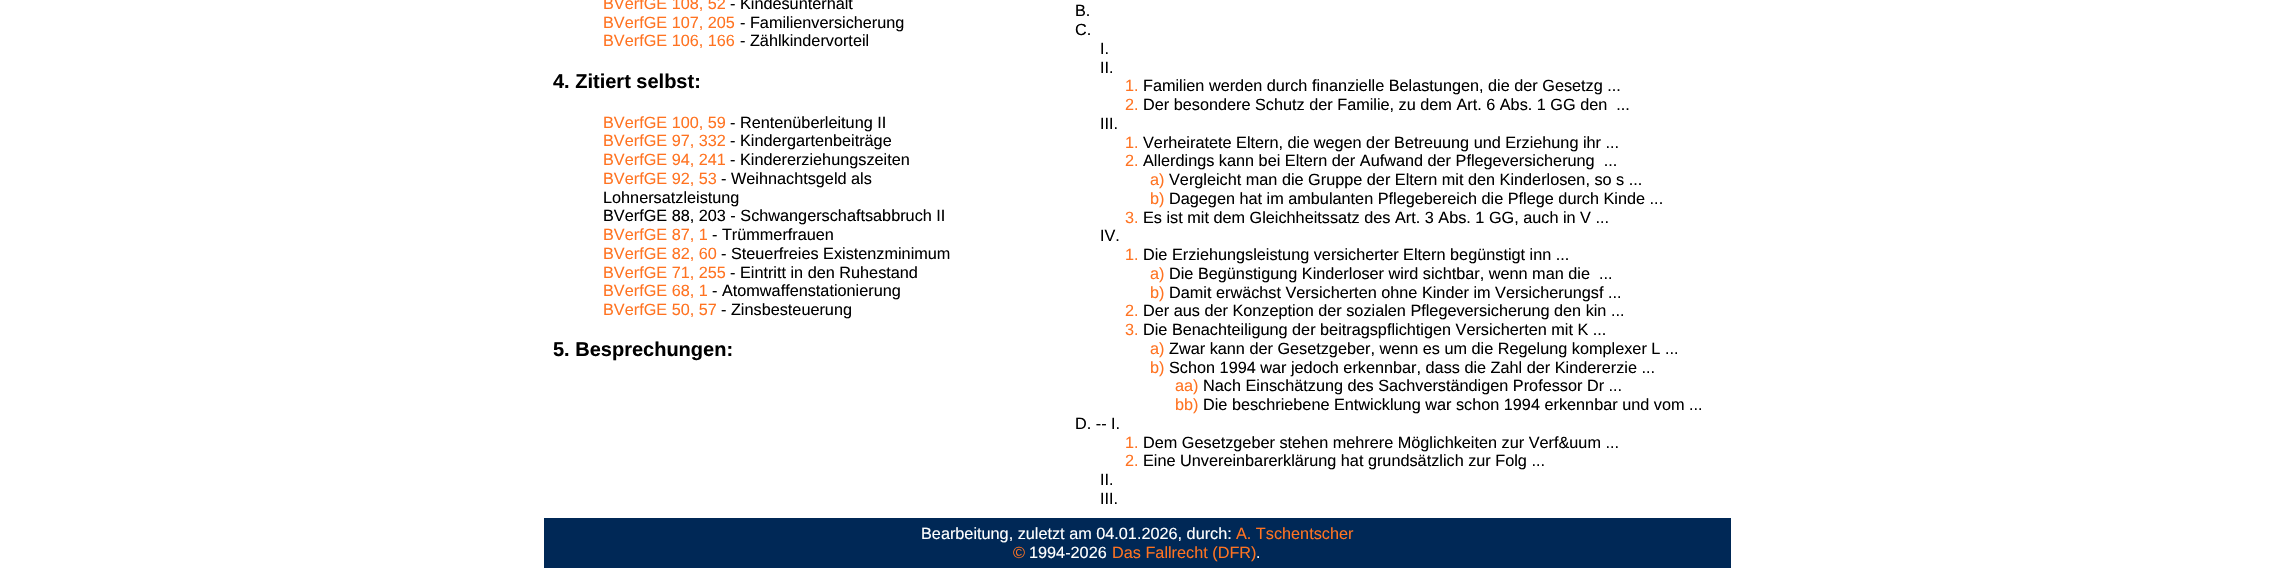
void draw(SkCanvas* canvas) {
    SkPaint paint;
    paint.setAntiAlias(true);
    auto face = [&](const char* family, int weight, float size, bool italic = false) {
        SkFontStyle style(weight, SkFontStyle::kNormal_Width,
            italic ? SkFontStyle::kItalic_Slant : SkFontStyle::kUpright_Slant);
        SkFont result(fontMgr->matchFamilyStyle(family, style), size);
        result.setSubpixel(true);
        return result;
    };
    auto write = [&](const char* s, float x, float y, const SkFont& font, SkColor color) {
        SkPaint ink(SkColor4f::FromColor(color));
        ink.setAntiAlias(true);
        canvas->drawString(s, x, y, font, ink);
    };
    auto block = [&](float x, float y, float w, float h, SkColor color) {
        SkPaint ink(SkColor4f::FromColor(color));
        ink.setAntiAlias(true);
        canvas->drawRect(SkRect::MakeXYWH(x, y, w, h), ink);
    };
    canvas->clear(SK_ColorWHITE);
    auto kFont1 = face("Liberation Sans", 400, 16.25f);
    write("BVerfGE 108, 52", 603, 9, kFont1, SkColorSetRGB(255, 115, 33));
    write("- Kindesunterhalt", 730, 9, kFont1, SK_ColorBLACK);
    write("BVerfGE 107, 205", 603, 28, kFont1, SkColorSetRGB(255, 115, 33));
    write("- Familienversicherung", 740, 28, kFont1, SK_ColorBLACK);
    write("BVerfGE 106, 166", 603, 46, kFont1, SkColorSetRGB(255, 115, 33));
    write("- Zählkindervorteil", 740, 46, kFont1, SK_ColorBLACK);
    auto kFont2 = face("Liberation Sans", 700, 20);
    write("4. Zitiert selbst:", 553, 88, kFont2, SK_ColorBLACK);
    write("BVerfGE 100, 59", 603, 128, kFont1, SkColorSetRGB(255, 115, 33));
    write("- Rentenüberleitung II", 730, 128, kFont1, SK_ColorBLACK);
    write("BVerfGE 97, 332", 603, 146, kFont1, SkColorSetRGB(255, 115, 33));
    write("- Kindergartenbeiträge", 730, 146, kFont1, SK_ColorBLACK);
    write("BVerfGE 94, 241", 603, 165, kFont1, SkColorSetRGB(255, 115, 33));
    write("- Kindererziehungszeiten", 730, 165, kFont1, SK_ColorBLACK);
    write("BVerfGE 92, 53", 603, 184, kFont1, SkColorSetRGB(255, 115, 33));
    write("- Weihnachtsgeld als", 721, 184, kFont1, SK_ColorBLACK);
    write("Lohnersatzleistung", 603, 203, kFont1, SK_ColorBLACK);
    write("BVerfGE 88, 203 - Schwangerschaftsabbruch II", 603, 221, kFont1, SK_ColorBLACK);
    write("BVerfGE 87, 1", 603, 240, kFont1, SkColorSetRGB(255, 115, 33));
    write("- Trümmerfrauen", 712, 240, kFont1, SK_ColorBLACK);
    write("BVerfGE 82, 60", 603, 259, kFont1, SkColorSetRGB(255, 115, 33));
    write("- Steuerfreies Existenzminimum", 721, 259, kFont1, SK_ColorBLACK);
    write("BVerfGE 71, 255", 603, 278, kFont1, SkColorSetRGB(255, 115, 33));
    write("- Eintritt in den Ruhestand", 730, 278, kFont1, SK_ColorBLACK);
    write("BVerfGE 68, 1", 603, 296, kFont1, SkColorSetRGB(255, 115, 33));
    write("- Atomwaffenstationierung", 712, 296, kFont1, SK_ColorBLACK);
    write("BVerfGE 50, 57", 603, 315, kFont1, SkColorSetRGB(255, 115, 33));
    write("- Zinsbesteuerung", 721, 315, kFont1, SK_ColorBLACK);
    write("5. Besprechungen:", 553, 356, kFont2, SK_ColorBLACK);
    write("B.", 1075, 16, kFont1, SK_ColorBLACK);
    write("C.", 1075, 35, kFont1, SK_ColorBLACK);
    write("I.", 1100, 54, kFont1, SK_ColorBLACK);
    write("II.", 1100, 73, kFont1, SK_ColorBLACK);
    write("1.", 1125, 91, kFont1, SkColorSetRGB(255, 115, 33));
    write("Familien werden durch finanzielle Belastungen, die der Gesetzg ...", 1143, 91, kFont1, SK_ColorBLACK);
    write("2.", 1125, 110, kFont1, SkColorSetRGB(255, 115, 33));
    write("Der besondere Schutz der Familie, zu dem Art. 6 Abs. 1 GG den  ...", 1143, 110, kFont1, SK_ColorBLACK);
    write("III.", 1100, 129, kFont1, SK_ColorBLACK);
    write("1.", 1125, 148, kFont1, SkColorSetRGB(255, 115, 33));
    write("Verheiratete Eltern, die wegen der Betreuung und Erziehung ihr ...", 1143, 148, kFont1, SK_ColorBLACK);
    write("2.", 1125, 166, kFont1, SkColorSetRGB(255, 115, 33));
    write("Allerdings kann bei Eltern der Aufwand der Pflegeversicherung  ...", 1143, 166, kFont1, SK_ColorBLACK);
    write("a)", 1150, 185, kFont1, SkColorSetRGB(255, 115, 33));
    write("Vergleicht man die Gruppe der Eltern mit den Kinderlosen, so s ...", 1169, 185, kFont1, SK_ColorBLACK);
    write("b)", 1150, 204, kFont1, SkColorSetRGB(255, 115, 33));
    write("Dagegen hat im ambulanten Pflegebereich die Pflege durch Kinde ...", 1169, 204, kFont1, SK_ColorBLACK);
    write("3.", 1125, 223, kFont1, SkColorSetRGB(255, 115, 33));
    write("Es ist mit dem Gleichheitssatz des Art. 3 Abs. 1 GG, auch in V ...", 1143, 223, kFont1, SK_ColorBLACK);
    write("IV.", 1100, 241, kFont1, SK_ColorBLACK);
    write("1.", 1125, 260, kFont1, SkColorSetRGB(255, 115, 33));
    write("Die Erziehungsleistung versicherter Eltern begünstigt inn ...", 1143, 260, kFont1, SK_ColorBLACK);
    write("a)", 1150, 279, kFont1, SkColorSetRGB(255, 115, 33));
    write("Die Begünstigung Kinderloser wird sichtbar, wenn man die  ...", 1169, 279, kFont1, SK_ColorBLACK);
    write("b)", 1150, 298, kFont1, SkColorSetRGB(255, 115, 33));
    write("Damit erwächst Versicherten ohne Kinder im Versicherungsf ...", 1169, 298, kFont1, SK_ColorBLACK);
    write("2.", 1125, 316, kFont1, SkColorSetRGB(255, 115, 33));
    write("Der aus der Konzeption der sozialen Pflegeversicherung den kin ...", 1143, 316, kFont1, SK_ColorBLACK);
    write("3.", 1125, 335, kFont1, SkColorSetRGB(255, 115, 33));
    write("Die Benachteiligung der beitragspflichtigen Versicherten mit K ...", 1143, 335, kFont1, SK_ColorBLACK);
    write("a)", 1150, 354, kFont1, SkColorSetRGB(255, 115, 33));
    write("Zwar kann der Gesetzgeber, wenn es um die Regelung komplexer L ...", 1169, 354, kFont1, SK_ColorBLACK);
    write("b)", 1150, 373, kFont1, SkColorSetRGB(255, 115, 33));
    write("Schon 1994 war jedoch erkennbar, dass die Zahl der Kindererzie ...", 1169, 373, kFont1, SK_ColorBLACK);
    write("aa)", 1175, 391, kFont1, SkColorSetRGB(255, 115, 33));
    write("Nach Einschätzung des Sachverständigen Professor Dr ...", 1203, 391, kFont1, SK_ColorBLACK);
    write("bb)", 1175, 410, kFont1, SkColorSetRGB(255, 115, 33));
    write("Die beschriebene Entwicklung war schon 1994 erkennbar und vom ...", 1203, 410, kFont1, SK_ColorBLACK);
    write("D. -- I.", 1075, 429, kFont1, SK_ColorBLACK);
    write("1.", 1125, 448, kFont1, SkColorSetRGB(255, 115, 33));
    write("Dem Gesetzgeber stehen mehrere Möglichkeiten zur Verf&uum ...", 1143, 448, kFont1, SK_ColorBLACK);
    write("2.", 1125, 466, kFont1, SkColorSetRGB(255, 115, 33));
    write("Eine Unvereinbarerklärung hat grundsätzlich zur Folg ...", 1143, 466, kFont1, SK_ColorBLACK);
    write("II.", 1100, 485, kFont1, SK_ColorBLACK);
    write("III.", 1100, 504, kFont1, SK_ColorBLACK);
    block(544, 518, 1187, 50, SkColorSetRGB(0, 40, 86));
    write("Bearbeitung, zuletzt am 04.01.2026, durch:", 921, 539, kFont1, SK_ColorWHITE);
    write("A. Tschentscher", 1236, 539, kFont1, SkColorSetRGB(255, 115, 33));
    write("©", 1013, 558, kFont1, SkColorSetRGB(255, 115, 33));
    write("1994-2026", 1029, 558, kFont1, SK_ColorWHITE);
    write("Das Fallrecht (DFR)", 1112, 558, kFont1, SkColorSetRGB(255, 115, 33));
    write(".", 1256, 558, kFont1, SK_ColorWHITE);
}
